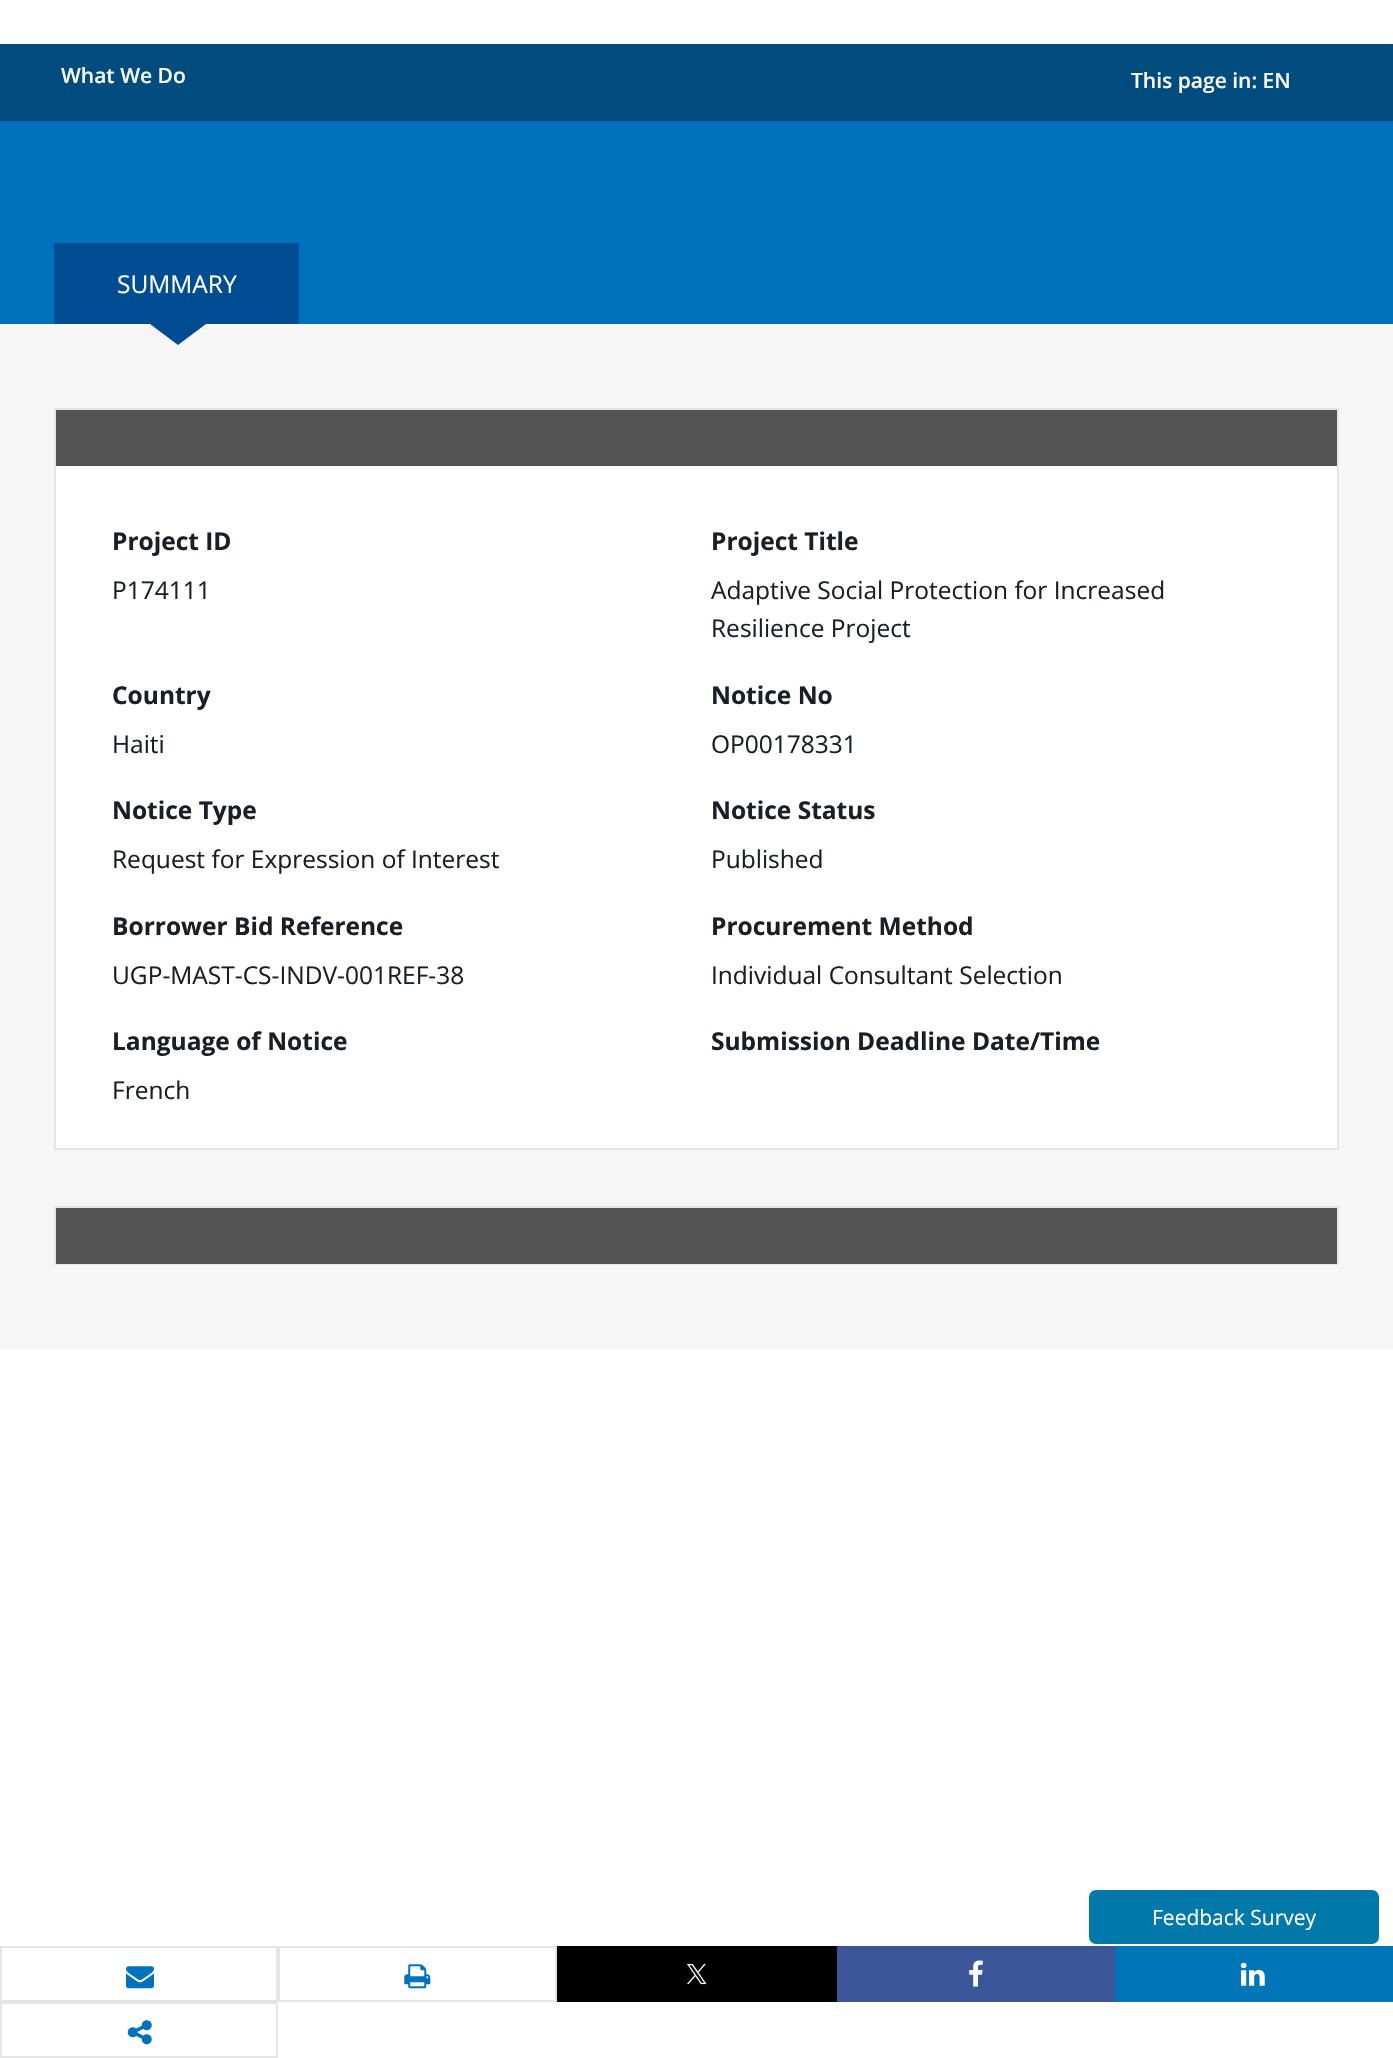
void draw(SkCanvas* canvas) {
    SkPaint paint;
    paint.setAntiAlias(true);
    auto face = [&](const char* family, int weight, float size, bool italic = false) {
        SkFontStyle style(weight, SkFontStyle::kNormal_Width,
            italic ? SkFontStyle::kItalic_Slant : SkFontStyle::kUpright_Slant);
        SkFont result(fontMgr->matchFamilyStyle(family, style), size);
        result.setSubpixel(true);
        return result;
    };
    auto write = [&](const char* s, float x, float y, const SkFont& font, SkColor color) {
        SkPaint ink(SkColor4f::FromColor(color));
        ink.setAntiAlias(true);
        canvas->drawString(s, x, y, font, ink);
    };
    auto block = [&](float x, float y, float w, float h, SkColor color) {
        SkPaint ink(SkColor4f::FromColor(color));
        ink.setAntiAlias(true);
        canvas->drawRect(SkRect::MakeXYWH(x, y, w, h), ink);
    };
    auto card = [&](float x, float y, float w, float h, float radius, SkColor color) {
        SkPaint ink(SkColor4f::FromColor(color));
        ink.setAntiAlias(true);
        canvas->drawRoundRect(SkRect::MakeXYWH(x, y, w, h), radius, radius, ink);
    };
    auto paste = [&](const char* path, float x, float y, float w, float h) {
        auto image = SkImages::DeferredFromEncodedData(SkData::MakeFromFileName(path));
        canvas->drawImageRect(image, SkRect::MakeXYWH(x, y, w, h), SkSamplingOptions());
    };
    canvas->clear(SK_ColorWHITE);
    block(0, 44, 1393, 77, SkColorSetRGB(0, 76, 126));
    auto kFont1 = face("Open Sans", 600, 21);
    write("What We Do", 61, 83, kFont1, SK_ColorWHITE);
    write("This page in: EN", 1131, 88, kFont1, SK_ColorWHITE);
    block(0, 121, 1393, 203, SkColorSetRGB(0, 113, 188));
    block(54, 243, 245, 81, SkColorSetRGB(0, 76, 146));
    auto kFont2 = face("Open Sans", 400, 24.5f);
    write("SUMMARY", 117, 293, kFont2, SK_ColorWHITE);
    block(0, 324, 1393, 1025, SkColorSetRGB(246, 246, 246));
    paint.setColor(SkColorSetRGB(0, 76, 146));
    canvas->drawPath(SkPathBuilder().moveTo(150, 324).lineTo(206, 324).lineTo(178, 345).close().detach(), paint);
    block(56, 466, 1281, 682, SK_ColorWHITE);
    paint.setStyle(SkPaint::kStroke_Style);
    paint.setStrokeWidth(2);
    paint.setColor(SkColorSetRGB(229, 229, 229));
    canvas->drawRect(SkRect::MakeXYWH(55, 409, 1283, 740), paint);
    block(56, 410, 1281, 56, SkColorSetRGB(84, 84, 84));
    auto kFont3 = face("Open Sans", 700, 24.5f);
    write("Project ID", 112, 550, kFont3, SkColorSetRGB(24, 31, 37));
    write("P174111", 112, 599, kFont2, SkColorSetRGB(24, 31, 37));
    write("Project Title", 711, 550, kFont3, SkColorSetRGB(24, 31, 37));
    write("Adaptive Social Protection for Increased", 711, 599, kFont2, SkColorSetRGB(24, 31, 37));
    write("Resilience Project", 711, 637, kFont2, SkColorSetRGB(24, 31, 37));
    write("Country", 112, 704, kFont3, SkColorSetRGB(24, 31, 37));
    write("Haiti", 112, 753, kFont2, SkColorSetRGB(24, 31, 37));
    write("Notice No", 711, 704, kFont3, SkColorSetRGB(24, 31, 37));
    write("OP00178331", 711, 753, kFont2, SkColorSetRGB(24, 31, 37));
    write("Notice Type", 112, 819, kFont3, SkColorSetRGB(24, 31, 37));
    write("Request for Expression of Interest", 112, 868, kFont2, SkColorSetRGB(24, 31, 37));
    write("Notice Status", 711, 819, kFont3, SkColorSetRGB(24, 31, 37));
    write("Published", 711, 868, kFont2, SkColorSetRGB(24, 31, 37));
    write("Borrower Bid Reference", 112, 935, kFont3, SkColorSetRGB(24, 31, 37));
    write("UGP-MAST-CS-INDV-001REF-38", 112, 984, kFont2, SkColorSetRGB(24, 31, 37));
    write("Procurement Method", 711, 935, kFont3, SkColorSetRGB(24, 31, 37));
    write("Individual Consultant Selection", 711, 984, kFont2, SkColorSetRGB(24, 31, 37));
    write("Language of Notice", 112, 1050, kFont3, SkColorSetRGB(24, 31, 37));
    write("French", 112, 1099, kFont2, SkColorSetRGB(24, 31, 37));
    write("Submission Deadline Date/Time", 711, 1050, kFont3, SkColorSetRGB(24, 31, 37));
    canvas->drawRect(SkRect::MakeXYWH(55, 1207, 1283, 57), paint);
    block(56, 1208, 1281, 56, SkColorSetRGB(84, 84, 84));
    canvas->drawRect(SkRect::MakeXYWH(1, 1947, 276, 54), paint);
    paste("pic1.png", 126, 1966, 28, 23);
    canvas->drawRect(SkRect::MakeXYWH(279, 1947, 277, 54), paint);
    paste("pic2.png", 404, 1964, 27, 25);
    block(557, 1946, 280, 56, SK_ColorBLACK);
    paste("pic3.png", 687, 1963, 20, 22);
    block(837, 1946, 278, 56, SkColorSetRGB(60, 86, 154));
    paste("pic4.png", 969, 1960, 14, 27);
    block(1115, 1946, 278, 56, SkColorSetRGB(0, 117, 183));
    paste("pic5.png", 1240, 1962, 25, 24);
    canvas->drawRect(SkRect::MakeXYWH(1, 2003, 276, 54), paint);
    paste("pic6.png", 127, 2020, 25, 25);
    card(1089, 1890, 290, 54, 7, SkColorSetRGB(0, 121, 170));
    auto kFont4 = face("Open Sans", 400, 21);
    write("Feedback Survey", 1152, 1925, kFont4, SK_ColorWHITE);
}
